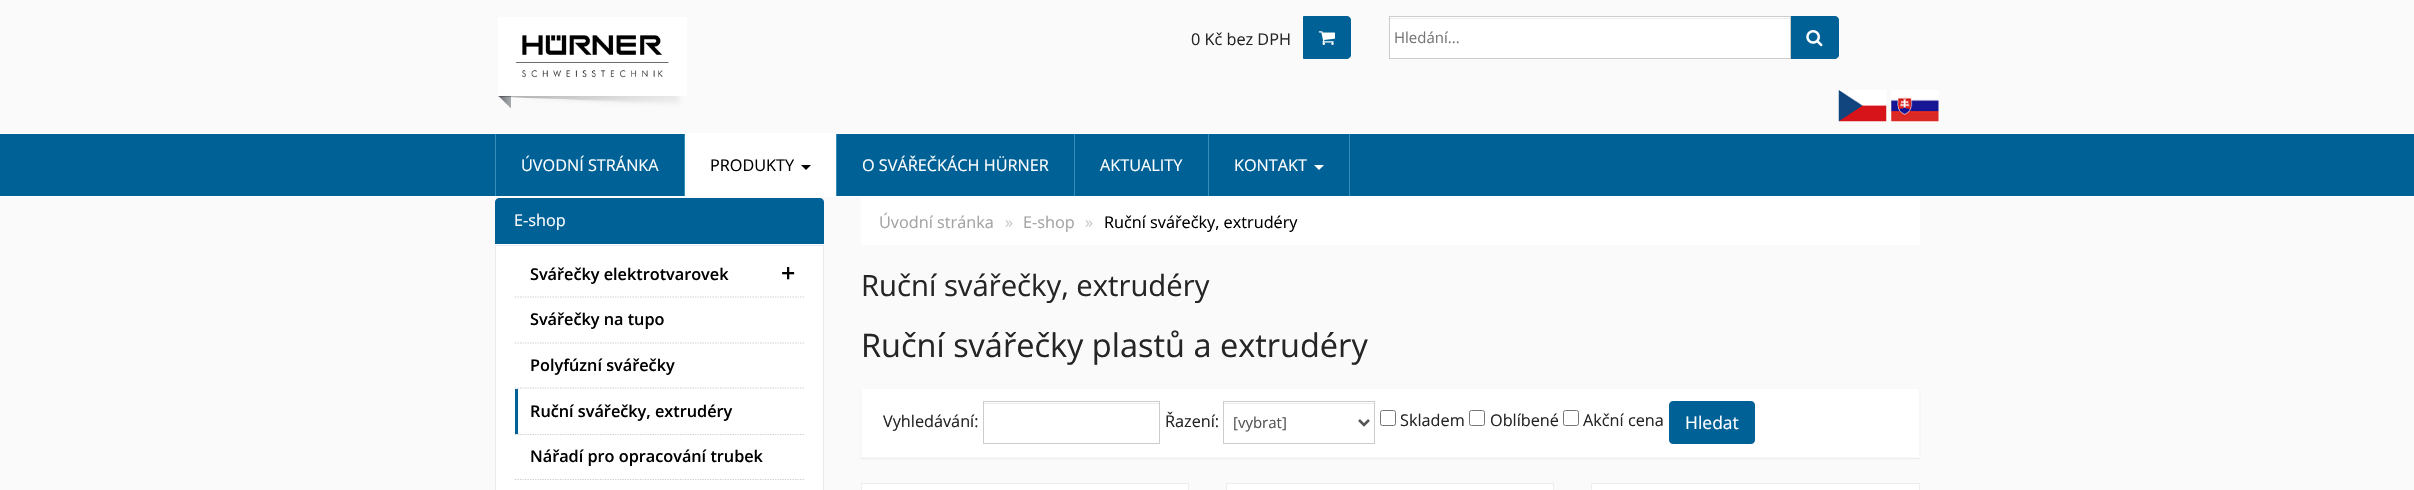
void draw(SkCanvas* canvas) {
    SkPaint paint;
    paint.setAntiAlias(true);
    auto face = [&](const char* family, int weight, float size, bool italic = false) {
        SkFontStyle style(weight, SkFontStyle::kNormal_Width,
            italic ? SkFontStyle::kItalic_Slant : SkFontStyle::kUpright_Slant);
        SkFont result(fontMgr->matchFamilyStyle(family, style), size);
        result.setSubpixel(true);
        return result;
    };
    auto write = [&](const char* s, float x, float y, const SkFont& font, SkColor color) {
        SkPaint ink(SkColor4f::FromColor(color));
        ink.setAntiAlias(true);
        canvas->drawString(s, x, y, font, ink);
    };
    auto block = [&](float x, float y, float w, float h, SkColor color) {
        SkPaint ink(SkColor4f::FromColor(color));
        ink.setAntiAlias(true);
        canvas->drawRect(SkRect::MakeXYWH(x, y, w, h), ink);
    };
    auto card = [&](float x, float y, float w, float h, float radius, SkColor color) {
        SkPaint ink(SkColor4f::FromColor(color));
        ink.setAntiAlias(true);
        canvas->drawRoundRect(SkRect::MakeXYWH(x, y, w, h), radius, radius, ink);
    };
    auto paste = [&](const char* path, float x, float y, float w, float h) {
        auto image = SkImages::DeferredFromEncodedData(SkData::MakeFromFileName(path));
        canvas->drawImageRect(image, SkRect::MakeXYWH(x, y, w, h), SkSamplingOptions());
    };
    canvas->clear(SkColorSetRGB(250, 250, 250));
    paste("pic1.png", 498, 17, 189, 92);
    auto kFont1 = face("Open Sans", 400, 16.25f);
    write("0 Kč bez DPH", 1191, 45, kFont1, SkColorSetRGB(37, 37, 37));
    paint.setColor(SkColorSetRGB(0, 97, 151));
    canvas->drawPath(SkPathBuilder().moveTo(1303.5f, 16.5f).lineTo(1347, 16.5f).cubicTo(1349, 16.5f, 1350.5f, 18, 1350.5f, 20).lineTo(1350.5f, 55).cubicTo(1350.5f, 57, 1349, 58.5f, 1347, 58.5f).lineTo(1303.5f, 58.5f).close().detach(), paint);
    paint.setStyle(SkPaint::kStroke_Style);
    paint.setStrokeWidth(1);
    canvas->drawPath(SkPathBuilder().moveTo(1303.5f, 16.5f).lineTo(1347, 16.5f).cubicTo(1349, 16.5f, 1350.5f, 18, 1350.5f, 20).lineTo(1350.5f, 55).cubicTo(1350.5f, 57, 1349, 58.5f, 1347, 58.5f).lineTo(1303.5f, 58.5f).close().detach(), paint);
    paste("pic2.png", 1318, 31, 17, 14);
    block(1390, 17, 400, 41, SK_ColorWHITE);
    block(1390, 18, 400, 1, SkColorSetRGB(236, 236, 236));
    paint.setStyle(SkPaint::kFill_Style);
    canvas->drawPath(SkPathBuilder().moveTo(1790.5f, 16.5f).lineTo(1835, 16.5f).cubicTo(1837, 16.5f, 1838.5f, 18, 1838.5f, 20).lineTo(1838.5f, 55).cubicTo(1838.5f, 57, 1837, 58.5f, 1835, 58.5f).lineTo(1790.5f, 58.5f).close().detach(), paint);
    paint.setStyle(SkPaint::kStroke_Style);
    canvas->drawPath(SkPathBuilder().moveTo(1790.5f, 16.5f).lineTo(1835, 16.5f).cubicTo(1837, 16.5f, 1838.5f, 18, 1838.5f, 20).lineTo(1838.5f, 55).cubicTo(1838.5f, 57, 1837, 58.5f, 1835, 58.5f).lineTo(1790.5f, 58.5f).close().detach(), paint);
    paint.setColor(SkColorSetRGB(204, 204, 204));
    canvas->drawRect(SkRect::MakeXYWH(1389.5f, 16.5f, 401, 42), paint);
    auto kFont2 = face("Open Sans", 400, 15);
    write("Hledání...", 1394, 43, kFont2, SkColorSetRGB(119, 119, 119));
    paste("pic3.png", 1806, 30, 17, 17);
    paste("pic4.png", 1838, 90, 49, 32);
    paste("pic5.png", 1891, 90, 48, 32);
    block(0, 134, 2414, 62, SkColorSetRGB(0, 97, 151));
    block(0, 133, 2414, 1, SK_ColorWHITE);
    block(0, 196, 2414, 1, SK_ColorWHITE);
    block(684, 134, 1, 62, SkColorSetRGB(51, 141, 184));
    block(495, 134, 1, 62, SkColorSetRGB(51, 141, 184));
    write("ÚVODNÍ STRÁNKA", 521, 171, kFont1, SK_ColorWHITE);
    block(836, 134, 1, 62, SkColorSetRGB(51, 141, 184));
    block(685, 134, 151, 62, SK_ColorWHITE);
    write("PRODUKTY", 710, 171, kFont1, SK_ColorBLACK);
    paint.setStyle(SkPaint::kFill_Style);
    paint.setColor(SK_ColorBLACK);
    canvas->drawPath(SkPathBuilder().moveTo(801, 165).lineTo(811, 165).lineTo(806, 170).close().detach(), paint);
    block(1074, 134, 1, 62, SkColorSetRGB(51, 141, 184));
    write("O SVÁŘEČKÁCH HÜRNER", 862, 171, kFont1, SK_ColorWHITE);
    block(1208, 134, 1, 62, SkColorSetRGB(51, 141, 184));
    write("AKTUALITY", 1100, 171, kFont1, SK_ColorWHITE);
    block(1349, 134, 1, 62, SkColorSetRGB(51, 141, 184));
    write("KONTAKT", 1234, 171, kFont1, SK_ColorWHITE);
    paint.setColor(SK_ColorWHITE);
    canvas->drawPath(SkPathBuilder().moveTo(1314, 165).lineTo(1324, 165).lineTo(1319, 170).close().detach(), paint);
    card(495, 198, 329, 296, 4, SK_ColorWHITE);
    paint.setColor(SkColorSetRGB(0, 97, 151));
    canvas->drawPath(SkPathBuilder().moveTo(499, 198).lineTo(820, 198).cubicTo(822, 198, 824, 200, 824, 202).lineTo(824, 245).lineTo(495, 245).lineTo(495, 202).cubicTo(495, 200, 497, 198, 499, 198).close().detach(), paint);
    block(495, 244, 329, 1, SK_ColorWHITE);
    write("E-shop", 514, 226, kFont1, SK_ColorWHITE);
    paint.setStyle(SkPaint::kStroke_Style);
    paint.setColor(SkColorSetRGB(234, 234, 234));
    canvas->drawRect(SkRect::MakeXYWH(495.5f, 245.5f, 328, 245), paint);
    auto kFont3 = face("Open Sans", 600, 16.25f);
    write("Svářečky elektrotvarovek", 530, 280, kFont3, SK_ColorBLACK);
    auto kFont4 = face("Open Sans", 600, 25);
    write("+", 781, 282, kFont4, SK_ColorBLACK);
    paint.setStrokeWidth(1.2f);
    paint.setColor(SkColorSetRGB(204, 204, 204));
    paint.setPathEffect(SkDashPathEffect::Make({{1.25f, 1.25f}}, 0));
    canvas->drawPath(SkPathBuilder().moveTo(515, 297).lineTo(804, 297).detach(), paint);
    paint.setPathEffect(nullptr);
    write("Svářečky na tupo", 530, 325, kFont3, SK_ColorBLACK);
    paint.setPathEffect(SkDashPathEffect::Make({{1.25f, 1.25f}}, 0));
    canvas->drawPath(SkPathBuilder().moveTo(515, 343).lineTo(804, 343).detach(), paint);
    paint.setPathEffect(nullptr);
    write("Polyfúzní svářečky", 530, 371, kFont3, SK_ColorBLACK);
    paint.setPathEffect(SkDashPathEffect::Make({{1.25f, 1.25f}}, 0));
    canvas->drawPath(SkPathBuilder().moveTo(515, 388).lineTo(804, 388).detach(), paint);
    paint.setPathEffect(nullptr);
    block(515, 389, 3, 45, SkColorSetRGB(0, 97, 151));
    write("Ruční svářečky, extrudéry", 530, 417, kFont3, SK_ColorBLACK);
    paint.setPathEffect(SkDashPathEffect::Make({{1.25f, 1.25f}}, 0));
    canvas->drawPath(SkPathBuilder().moveTo(515, 434.5f).lineTo(804, 434.5f).detach(), paint);
    paint.setPathEffect(nullptr);
    write("Nářadí pro opracování trubek", 530, 462, kFont3, SK_ColorBLACK);
    paint.setPathEffect(SkDashPathEffect::Make({{1.25f, 1.25f}}, 0));
    canvas->drawPath(SkPathBuilder().moveTo(515, 479.5f).lineTo(804, 479.5f).detach(), paint);
    paint.setPathEffect(nullptr);
    block(861, 198, 1059, 47, SK_ColorWHITE);
    write("Úvodní stránka", 879, 228, kFont1, SkColorSetRGB(163, 163, 163));
    write("»", 1005, 228, kFont1, SkColorSetRGB(204, 204, 204));
    write("E-shop", 1023, 228, kFont1, SkColorSetRGB(163, 163, 163));
    write("»", 1085, 228, kFont1, SkColorSetRGB(204, 204, 204));
    write("Ruční svářečky, extrudéry", 1104, 228, kFont1, SK_ColorBLACK);
    auto kFont5 = face("Open Sans", 400, 29.25f);
    write("Ruční svářečky, extrudéry", 861, 296, kFont5, SkColorSetRGB(37, 37, 37));
    auto kFont6 = face("Open Sans", 400, 32.5f);
    write("Ruční svářečky plastů a extrudéry", 861, 357, kFont6, SkColorSetRGB(37, 37, 37));
    paint.setStyle(SkPaint::kFill_Style);
    paint.setColor(SkColorSetARGB(13, 0, 0, 0));
    paint.setMaskFilter(SkMaskFilter::MakeBlur(kNormal_SkBlurStyle, 0.5f));
    canvas->drawRect(SkRect::MakeXYWH(861, 389, 1059, 70), paint);
    paint.setMaskFilter(nullptr);
    paint.setColor(SK_ColorWHITE);
    canvas->drawRect(SkRect::MakeXYWH(861.5f, 388.5f, 1058, 69), paint);
    paint.setStyle(SkPaint::kStroke_Style);
    paint.setStrokeWidth(1);
    paint.setColor(SkColorSetRGB(249, 249, 249));
    canvas->drawRect(SkRect::MakeXYWH(861.5f, 388.5f, 1058, 69), paint);
    write("Vyhledávání:", 883, 427, kFont1, SkColorSetRGB(37, 37, 37));
    block(984, 403, 175, 1, SkColorSetRGB(236, 236, 236));
    paint.setColor(SkColorSetRGB(204, 204, 204));
    canvas->drawRect(SkRect::MakeXYWH(983.5f, 401.5f, 176, 42), paint);
    write("Řazení:", 1165, 427, kFont1, SkColorSetRGB(37, 37, 37));
    block(1224, 403, 150, 1, SkColorSetRGB(236, 236, 236));
    canvas->drawRect(SkRect::MakeXYWH(1223.5f, 401.5f, 151, 42), paint);
    paint.setStrokeWidth(2.5f);
    paint.setColor(SkColorSetRGB(85, 85, 85));
    canvas->drawPath(SkPathBuilder().moveTo(1359, 420).lineTo(1364, 425).lineTo(1369, 420).detach(), paint);
    write("[vybrat]", 1233, 428, kFont2, SkColorSetRGB(85, 85, 85));
    paint.setStrokeWidth(1);
    paint.setColor(SkColorSetRGB(118, 118, 118));
    canvas->drawRoundRect(SkRect::MakeXYWH(1380.5f, 410.5f, 15, 15), 2, 2, paint);
    write("Skladem", 1400, 426, kFont1, SkColorSetRGB(37, 37, 37));
    canvas->drawRoundRect(SkRect::MakeXYWH(1469.5f, 410.5f, 15, 15), 2, 2, paint);
    write("Oblíbené", 1490, 426, kFont1, SkColorSetRGB(37, 37, 37));
    canvas->drawRoundRect(SkRect::MakeXYWH(1563.5f, 410.5f, 15, 15), 2, 2, paint);
    write("Akční cena", 1583, 426, kFont1, SkColorSetRGB(37, 37, 37));
    paint.setStyle(SkPaint::kFill_Style);
    paint.setColor(SkColorSetRGB(0, 97, 151));
    canvas->drawRoundRect(SkRect::MakeXYWH(1669.5f, 401.5f, 85, 42), 3.5f, 3.5f, paint);
    paint.setStyle(SkPaint::kStroke_Style);
    canvas->drawRoundRect(SkRect::MakeXYWH(1669.5f, 401.5f, 85, 42), 3.5f, 3.5f, paint);
    auto kFont7 = face("Open Sans", 400, 17.5f);
    write("Hledat", 1685, 429, kFont7, SK_ColorWHITE);
    paint.setStyle(SkPaint::kFill_Style);
    paint.setColor(SK_ColorWHITE);
    canvas->drawRect(SkRect::MakeXYWH(861.5f, 483.5f, 327, 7), paint);
    paint.setStyle(SkPaint::kStroke_Style);
    paint.setColor(SkColorSetRGB(238, 238, 238));
    canvas->drawRect(SkRect::MakeXYWH(861.5f, 483.5f, 327, 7), paint);
    paint.setStyle(SkPaint::kFill_Style);
    paint.setColor(SK_ColorWHITE);
    canvas->drawRect(SkRect::MakeXYWH(1226.5f, 483.5f, 327, 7), paint);
    paint.setStyle(SkPaint::kStroke_Style);
    paint.setColor(SkColorSetRGB(238, 238, 238));
    canvas->drawRect(SkRect::MakeXYWH(1226.5f, 483.5f, 327, 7), paint);
    paint.setStyle(SkPaint::kFill_Style);
    paint.setColor(SK_ColorWHITE);
    canvas->drawRect(SkRect::MakeXYWH(1591.5f, 483.5f, 328, 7), paint);
    paint.setStyle(SkPaint::kStroke_Style);
    paint.setColor(SkColorSetRGB(238, 238, 238));
    canvas->drawRect(SkRect::MakeXYWH(1591.5f, 483.5f, 328, 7), paint);
}
